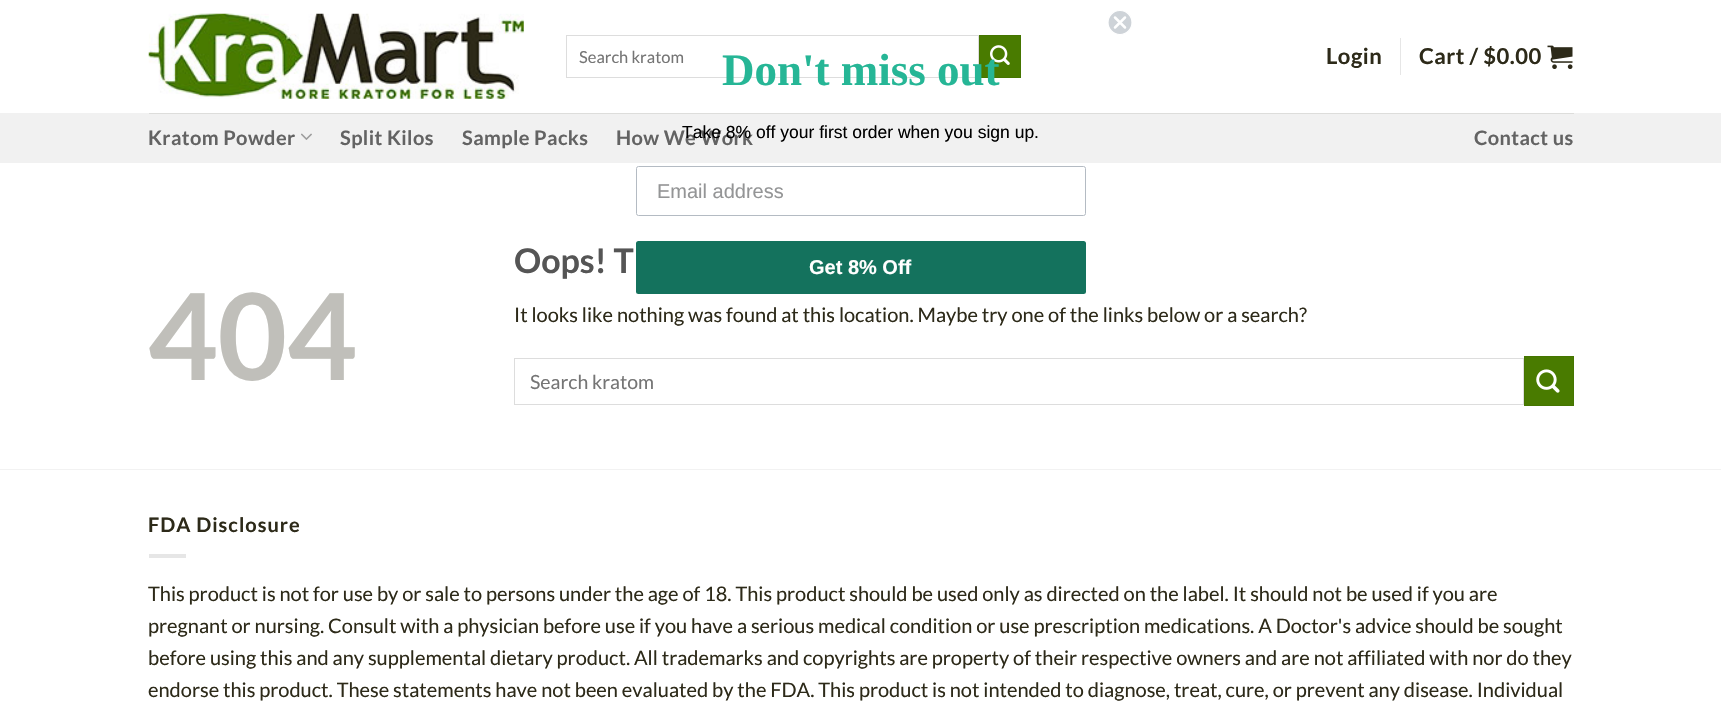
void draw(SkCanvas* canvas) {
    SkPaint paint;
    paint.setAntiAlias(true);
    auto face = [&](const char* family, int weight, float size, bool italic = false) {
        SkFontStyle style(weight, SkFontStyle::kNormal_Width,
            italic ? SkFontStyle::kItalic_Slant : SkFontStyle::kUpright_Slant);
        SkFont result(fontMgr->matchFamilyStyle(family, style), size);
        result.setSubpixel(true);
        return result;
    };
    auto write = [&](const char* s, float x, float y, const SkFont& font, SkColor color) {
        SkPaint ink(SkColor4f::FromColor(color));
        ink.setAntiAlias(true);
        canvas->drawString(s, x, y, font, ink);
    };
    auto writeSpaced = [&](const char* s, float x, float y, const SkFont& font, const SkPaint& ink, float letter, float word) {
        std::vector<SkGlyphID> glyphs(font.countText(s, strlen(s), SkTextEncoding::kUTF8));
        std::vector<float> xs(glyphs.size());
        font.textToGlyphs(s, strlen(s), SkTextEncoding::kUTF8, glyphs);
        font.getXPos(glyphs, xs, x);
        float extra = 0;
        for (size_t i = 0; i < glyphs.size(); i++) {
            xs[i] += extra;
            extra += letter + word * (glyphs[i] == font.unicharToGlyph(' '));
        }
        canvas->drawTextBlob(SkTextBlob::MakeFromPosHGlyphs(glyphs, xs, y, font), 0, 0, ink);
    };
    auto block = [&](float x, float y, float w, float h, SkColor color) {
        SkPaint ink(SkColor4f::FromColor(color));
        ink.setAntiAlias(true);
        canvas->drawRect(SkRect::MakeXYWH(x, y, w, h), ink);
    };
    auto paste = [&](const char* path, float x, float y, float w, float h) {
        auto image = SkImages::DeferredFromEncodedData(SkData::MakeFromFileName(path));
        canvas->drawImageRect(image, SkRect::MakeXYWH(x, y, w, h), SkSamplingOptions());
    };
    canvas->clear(SK_ColorWHITE);
    paste("pic1.png", 148, 13, 376, 86);
    paint.setStyle(SkPaint::kStroke_Style);
    paint.setStrokeWidth(1);
    paint.setColor(SkColorSetRGB(221, 221, 221));
    canvas->drawRect(SkRect::MakeXYWH(566.5f, 35.5f, 412, 42), paint);
    auto kFont1 = face("Lato", 400, 16.5f);
    write("Search kratom", 579, 63, kFont1, SkColorSetRGB(117, 117, 117));
    paint.setStyle(SkPaint::kFill_Style);
    paint.setColor(SkColorSetRGB(73, 123, 0));
    canvas->drawRect(SkRect::MakeXYWH(979.5f, 35.5f, 41, 42), paint);
    paint.setStyle(SkPaint::kStroke_Style);
    paint.setColor(SkColorSetRGB(69, 117, 0));
    canvas->drawRect(SkRect::MakeXYWH(979.5f, 35.5f, 41, 42), paint);
    paste("pic2.png", 990, 45, 20, 20);
    auto kFont2 = face("Lato", 700, 22);
    paint.setStyle(SkPaint::kFill_Style);
    paint.setColor(SkColorSetRGB(45, 42, 25));
    writeSpaced("Login", 1326, 64, kFont2, paint, 0.5f, 0);
    block(1400, 38, 1, 37, SkColorSetRGB(230, 230, 230));
    writeSpaced("Cart / $0.00", 1419, 64, kFont2, paint, 0.5f, 0);
    paste("pic3.png", 1547, 45, 26, 24);
    block(0, 113, 1721, 50, SkColorSetRGB(241, 241, 241));
    block(149, 113, 1425, 1, SkColorSetRGB(221, 221, 219));
    auto kFont3 = face("Lato", 700, 20);
    paint.setColor(SkColorSetRGB(99, 99, 99));
    writeSpaced("Kratom Powder", 148, 145, kFont3, paint, 0.4f, 0);
    paste("pic4.png", 301, 133, 11, 7);
    writeSpaced("Split Kilos", 340, 145, kFont3, paint, 0.4f, 0);
    writeSpaced("Sample Packs", 462, 145, kFont3, paint, 0.4f, 0);
    writeSpaced("How We Work", 616, 145, kFont3, paint, 0.4f, 0);
    writeSpaced("Contact us", 1474, 145, kFont3, paint, 0.4f, 0);
    auto kFont4 = face("Lato", 700, 120);
    write("404", 148, 380, kFont4, SkColorSetRGB(192, 191, 186));
    auto kFont5 = face("Lato", 700, 34);
    write("Oops! T", 514, 273, kFont5, SkColorSetRGB(85, 85, 85));
    auto kFont6 = face("Lato", 400, 20);
    write("It looks like nothing was found at this location. Maybe try one of the links below or a search?", 514, 322, kFont6, SkColorSetRGB(45, 42, 25));
    paint.setStyle(SkPaint::kStroke_Style);
    paint.setColor(SkColorSetRGB(221, 221, 221));
    canvas->drawRect(SkRect::MakeXYWH(514.5f, 358.5f, 1009, 46), paint);
    auto kFont7 = face("Lato", 400, 19.5f);
    write("Search kratom", 530, 389, kFont7, SkColorSetRGB(117, 117, 117));
    paint.setStyle(SkPaint::kFill_Style);
    paint.setColor(SkColorSetRGB(73, 123, 0));
    canvas->drawRect(SkRect::MakeXYWH(1524.5f, 356.5f, 49, 49), paint);
    paint.setStyle(SkPaint::kStroke_Style);
    paint.setColor(SkColorSetRGB(69, 117, 0));
    canvas->drawRect(SkRect::MakeXYWH(1524.5f, 356.5f, 49, 49), paint);
    paste("pic5.png", 1536, 369, 24, 24);
    block(0, 469, 1721, 1, SkColorSetRGB(242, 242, 242));
    paint.setStyle(SkPaint::kFill_Style);
    paint.setColor(SkColorSetRGB(45, 42, 25));
    writeSpaced("FDA Disclosure", 148, 532, kFont3, paint, 1, 0);
    block(149, 554, 37, 4, SkColorSetRGB(230, 230, 230));
    write("This product is not for use by or sale to persons under the age of 18. This product should be used only as directed on the label. It should not be used if you are", 148, 601, kFont6, SkColorSetRGB(45, 42, 25));
    write("pregnant or nursing. Consult with a physician before use if you have a serious medical condition or use prescription medications. A Doctor's advice should be sought", 148, 633, kFont6, SkColorSetRGB(45, 42, 25));
    write("before using this and any supplemental dietary product. All trademarks and copyrights are property of their respective owners and are not affiliated with nor do they", 148, 665, kFont6, SkColorSetRGB(45, 42, 25));
    write("endorse this product. These statements have not been evaluated by the FDA. This product is not intended to diagnose, treat, cure, or prevent any disease. Individual", 148, 697, kFont6, SkColorSetRGB(45, 42, 25));
    paint.setColor(SkColorSetRGB(206, 211, 216));
    canvas->drawCircle(1120, 22.5f, 12, paint);
    canvas->save();
    canvas->clipRect(SkRect::MakeXYWH(1108, 10, 25, 25));
    paint.setStyle(SkPaint::kStroke_Style);
    paint.setStrokeWidth(1.2f);
    paint.setColor(SK_ColorWHITE);
    canvas->drawCircle(1120, 22.5f, 12, paint);
    canvas->restore();
    paint.setStrokeWidth(2.5f);
    paint.setStrokeCap(SkPaint::kRound_Cap);
    paint.setStrokeJoin(SkPaint::kRound_Join);
    canvas->drawPath(SkPathBuilder().moveTo(1115, 17.5f).lineTo(1125, 27.5f).moveTo(1115, 27.5f).lineTo(1125, 17.5f).close().detach(), paint);
    auto kFont8 = face("Liberation Serif", 700, 45);
    write("Don't miss out", 722, 85, kFont8, SkColorSetRGB(38, 182, 150));
    auto kFont9 = face("Liberation Sans", 400, 17.5f);
    write("Take 8% off your first order when you sign up.", 682, 138, kFont9, SK_ColorBLACK);
    paint.setStrokeWidth(1);
    paint.setStrokeCap(SkPaint::kButt_Cap);
    paint.setStrokeJoin(SkPaint::kMiter_Join);
    paint.setColor(SkColorSetRGB(180, 187, 195));
    canvas->drawRoundRect(SkRect::MakeXYWH(636.5f, 166.5f, 449, 49), 2, 2, paint);
    auto kFont10 = face("Liberation Sans", 400, 20);
    write("Email address", 657, 198, kFont10, SkColorSetRGB(148, 149, 150));
    paint.setStyle(SkPaint::kFill_Style);
    paint.setColor(SkColorSetRGB(20, 114, 93));
    canvas->drawRoundRect(SkRect::MakeXYWH(637.5f, 242.5f, 447, 50), 1, 1, paint);
    paint.setStyle(SkPaint::kStroke_Style);
    paint.setStrokeWidth(3);
    canvas->drawRoundRect(SkRect::MakeXYWH(637.5f, 242.5f, 447, 50), 1, 1, paint);
    auto kFont11 = face("Liberation Sans", 700, 20);
    write("Get 8% Off", 809, 274, kFont11, SK_ColorWHITE);
}
